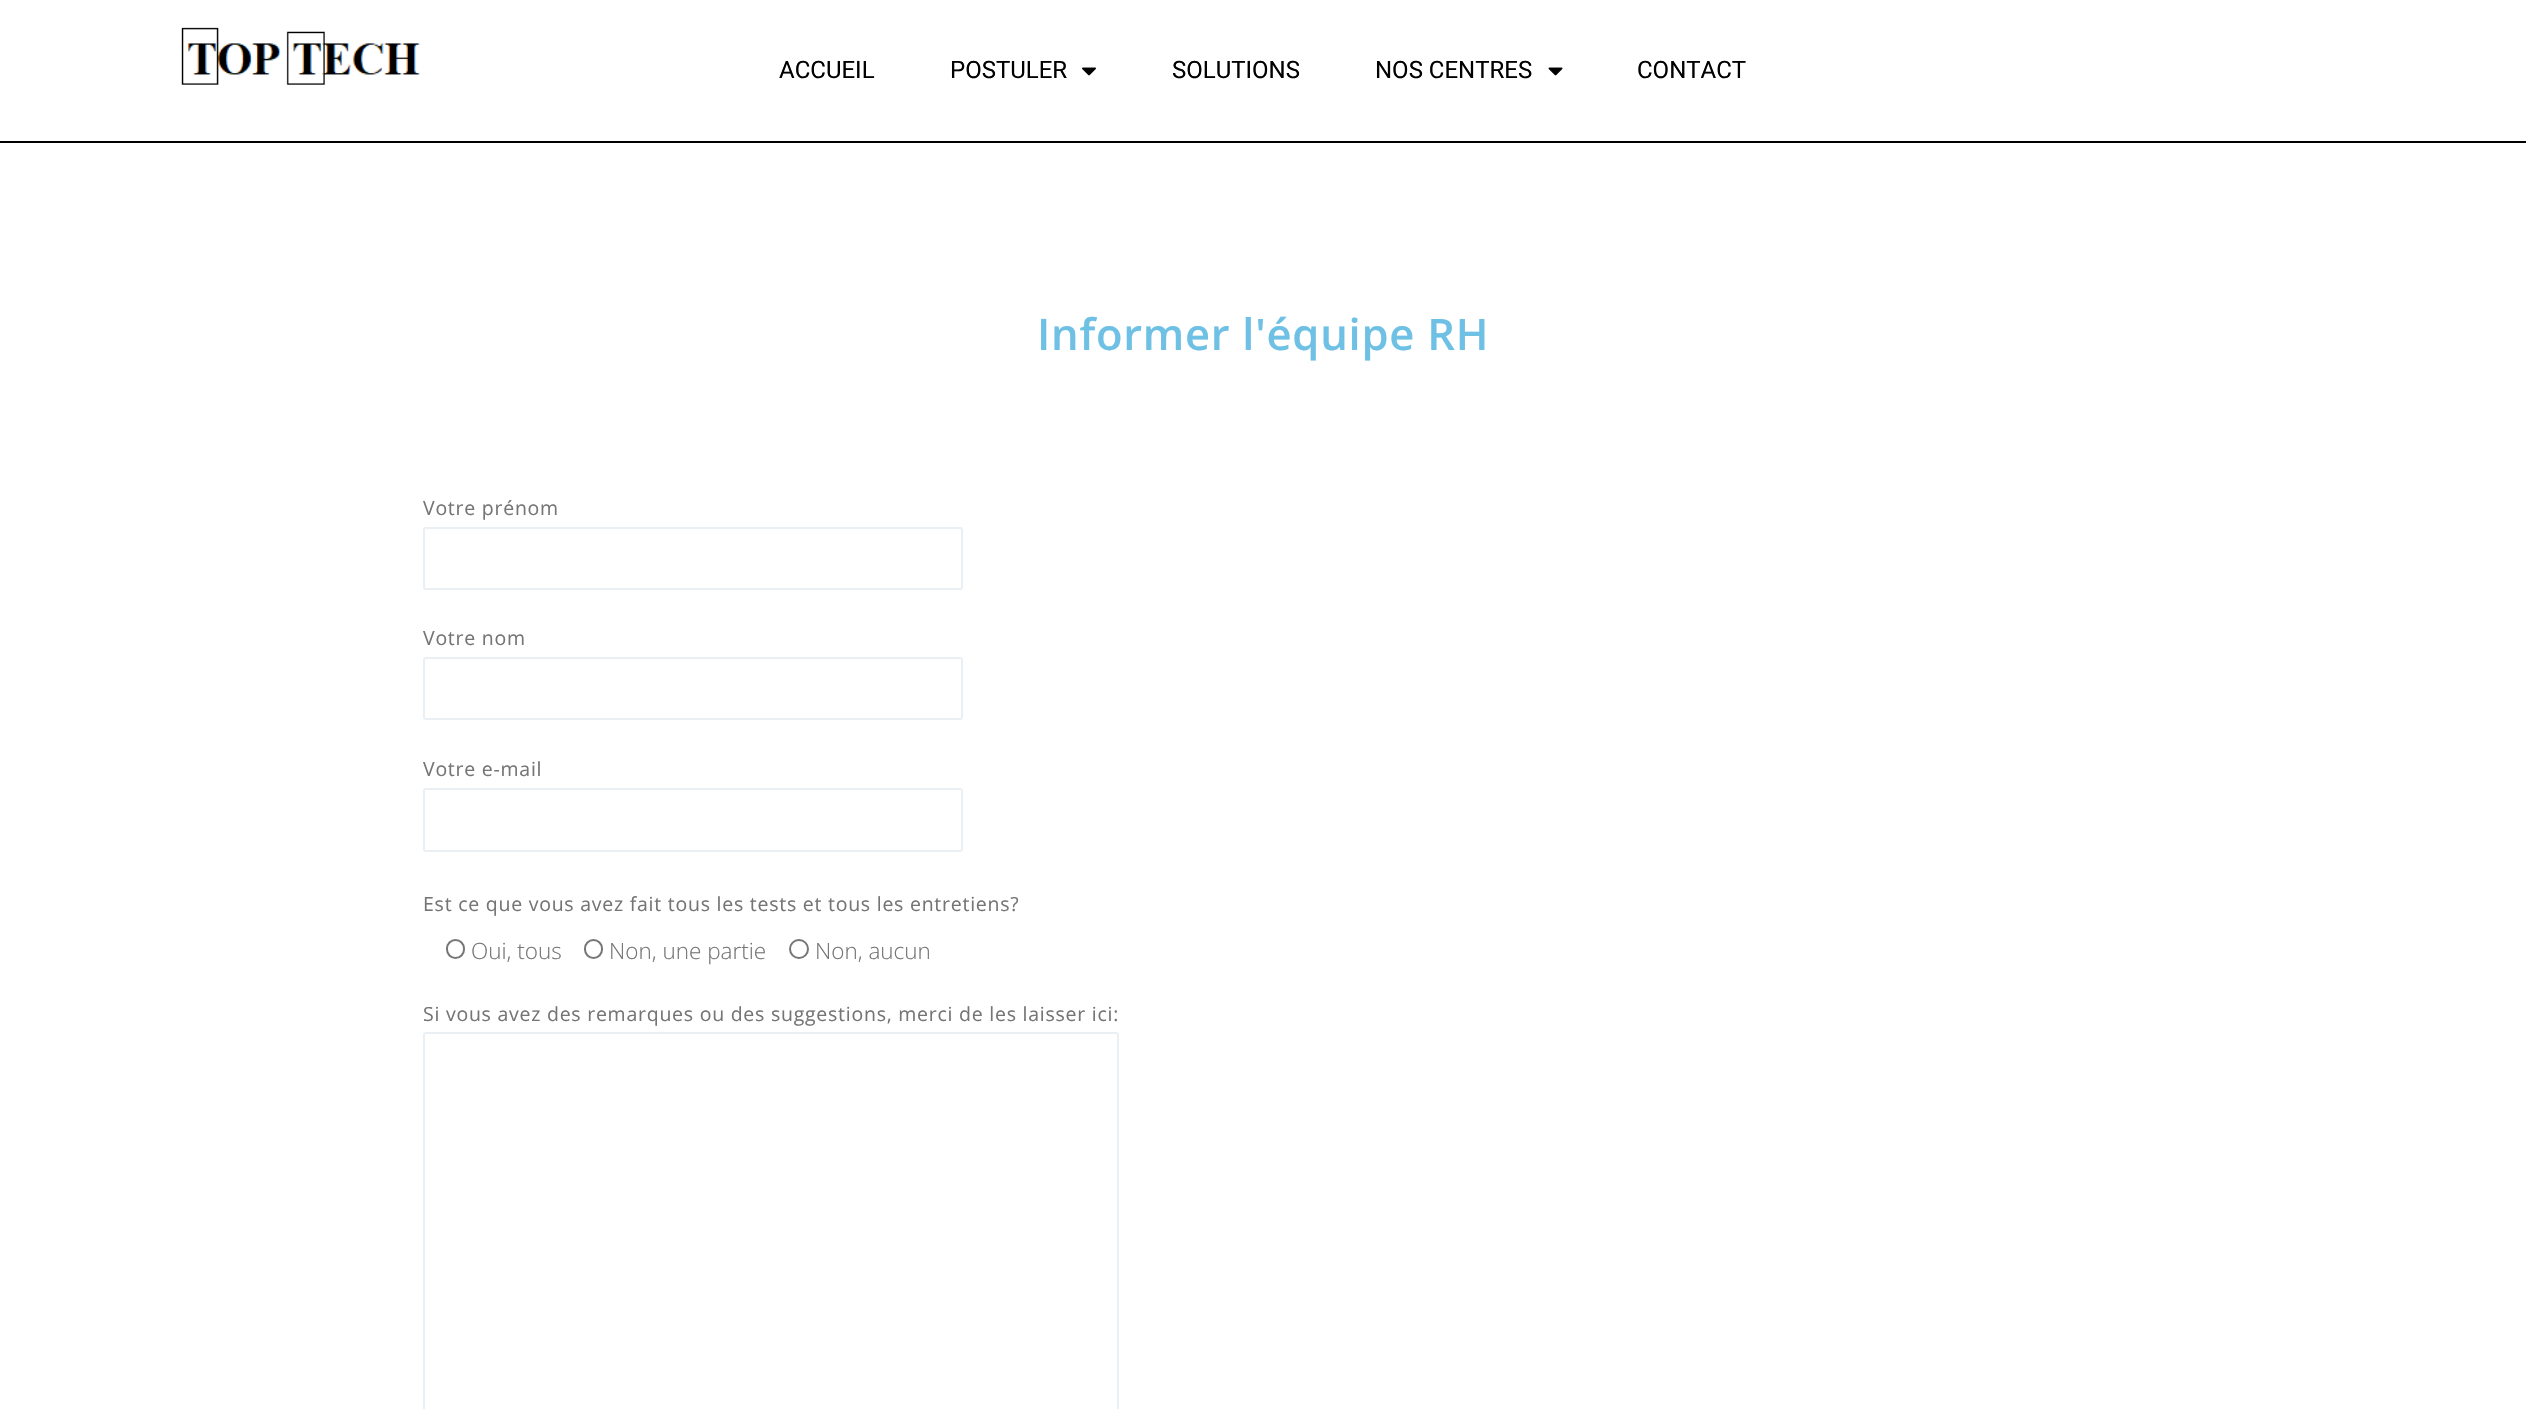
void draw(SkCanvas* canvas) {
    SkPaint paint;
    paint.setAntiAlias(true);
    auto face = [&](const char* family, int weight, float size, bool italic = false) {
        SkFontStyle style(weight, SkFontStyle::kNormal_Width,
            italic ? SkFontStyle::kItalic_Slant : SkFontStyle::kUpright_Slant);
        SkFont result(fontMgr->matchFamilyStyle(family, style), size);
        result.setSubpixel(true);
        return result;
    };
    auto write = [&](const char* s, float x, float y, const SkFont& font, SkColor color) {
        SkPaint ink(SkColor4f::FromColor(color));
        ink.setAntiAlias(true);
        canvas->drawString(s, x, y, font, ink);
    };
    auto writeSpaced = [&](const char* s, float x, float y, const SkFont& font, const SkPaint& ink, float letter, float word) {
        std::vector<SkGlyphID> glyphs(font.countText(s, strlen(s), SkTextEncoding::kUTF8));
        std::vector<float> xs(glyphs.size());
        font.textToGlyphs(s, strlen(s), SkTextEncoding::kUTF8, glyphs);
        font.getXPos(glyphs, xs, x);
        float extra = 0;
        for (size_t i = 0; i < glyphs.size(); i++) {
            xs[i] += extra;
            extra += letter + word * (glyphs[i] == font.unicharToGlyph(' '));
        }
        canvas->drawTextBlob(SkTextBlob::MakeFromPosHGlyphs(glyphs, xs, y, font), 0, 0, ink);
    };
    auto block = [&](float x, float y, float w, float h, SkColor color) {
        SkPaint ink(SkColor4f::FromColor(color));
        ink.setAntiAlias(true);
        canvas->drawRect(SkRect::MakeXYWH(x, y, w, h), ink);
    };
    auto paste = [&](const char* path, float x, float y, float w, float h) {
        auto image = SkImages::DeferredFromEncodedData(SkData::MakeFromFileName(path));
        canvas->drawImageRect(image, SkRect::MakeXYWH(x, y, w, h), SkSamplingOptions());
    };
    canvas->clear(SK_ColorWHITE);
    block(0, 141, 2526, 2, SK_ColorBLACK);
    paste("pic1.png", 181, 27, 239, 58);
    auto kFont1 = face("Roboto", 400, 24);
    write("ACCUEIL", 779, 78, kFont1, SK_ColorBLACK);
    write("POSTULER", 950, 78, kFont1, SK_ColorBLACK);
    paste("pic2.png", 1082, 67, 14, 9);
    write("SOLUTIONS", 1172, 78, kFont1, SK_ColorBLACK);
    write("NOS CENTRES", 1375, 78, kFont1, SK_ColorBLACK);
    paste("pic3.png", 1548, 67, 15, 9);
    write("CONTACT", 1637, 78, kFont1, SK_ColorBLACK);
    auto kFont2 = face("Open Sans", 600, 43.5f);
    paint.setColor(SkColorSetRGB(110, 193, 228));
    writeSpaced("Informer l'équipe RH", 1037, 350, kFont2, paint, 0.75f, 0);
    auto kFont3 = face("Open Sans", 400, 19.5f);
    paint.setColor(SkColorSetRGB(117, 117, 117));
    writeSpaced("Votre prénom", 423, 515, kFont3, paint, 0.75f, 0);
    paint.setStyle(SkPaint::kStroke_Style);
    paint.setStrokeWidth(2);
    paint.setColor(SkColorSetRGB(234, 239, 244));
    canvas->drawRoundRect(SkRect::MakeXYWH(424, 528, 538, 61), 2, 2, paint);
    paint.setStyle(SkPaint::kFill_Style);
    paint.setColor(SkColorSetRGB(117, 117, 117));
    writeSpaced("Votre nom", 423, 645, kFont3, paint, 0.75f, 0);
    paint.setStyle(SkPaint::kStroke_Style);
    paint.setColor(SkColorSetRGB(234, 239, 244));
    canvas->drawRoundRect(SkRect::MakeXYWH(424, 658, 538, 61), 2, 2, paint);
    paint.setStyle(SkPaint::kFill_Style);
    paint.setColor(SkColorSetRGB(117, 117, 117));
    writeSpaced("Votre e-mail", 423, 776, kFont3, paint, 0.75f, 0);
    paint.setStyle(SkPaint::kStroke_Style);
    paint.setColor(SkColorSetRGB(234, 239, 244));
    canvas->drawRoundRect(SkRect::MakeXYWH(424, 789, 538, 62), 2, 2, paint);
    paint.setStyle(SkPaint::kFill_Style);
    paint.setColor(SkColorSetRGB(117, 117, 117));
    writeSpaced("Est ce que vous avez fait tous les tests et tous les entretiens?", 423, 911, kFont3, paint, 0.75f, 0);
    paint.setStyle(SkPaint::kStroke_Style);
    paint.setColor(SkColorSetRGB(118, 118, 118));
    canvas->drawRoundRect(SkRect::MakeXYWH(447, 940, 17, 18), 8.5f, 8.5f, paint);
    auto kFont4 = face("Open Sans", 300, 22.5f);
    write("Oui, tous", 471, 959, kFont4, SkColorSetRGB(117, 117, 117));
    canvas->drawRoundRect(SkRect::MakeXYWH(585, 940, 17, 18), 8.5f, 8.5f, paint);
    write("Non, une partie", 609, 959, kFont4, SkColorSetRGB(117, 117, 117));
    canvas->drawCircle(799, 949, 9, paint);
    write("Non, aucun", 815, 959, kFont4, SkColorSetRGB(117, 117, 117));
    paint.setStyle(SkPaint::kFill_Style);
    paint.setColor(SkColorSetRGB(117, 117, 117));
    writeSpaced("Si vous avez des remarques ou des suggestions, merci de les laisser ici:", 423, 1021, kFont3, paint, 0.75f, 0);
    paint.setStyle(SkPaint::kStroke_Style);
    paint.setColor(SkColorSetRGB(234, 239, 244));
    canvas->drawRoundRect(SkRect::MakeXYWH(424, 1033, 694, 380), 2, 2, paint);
}
